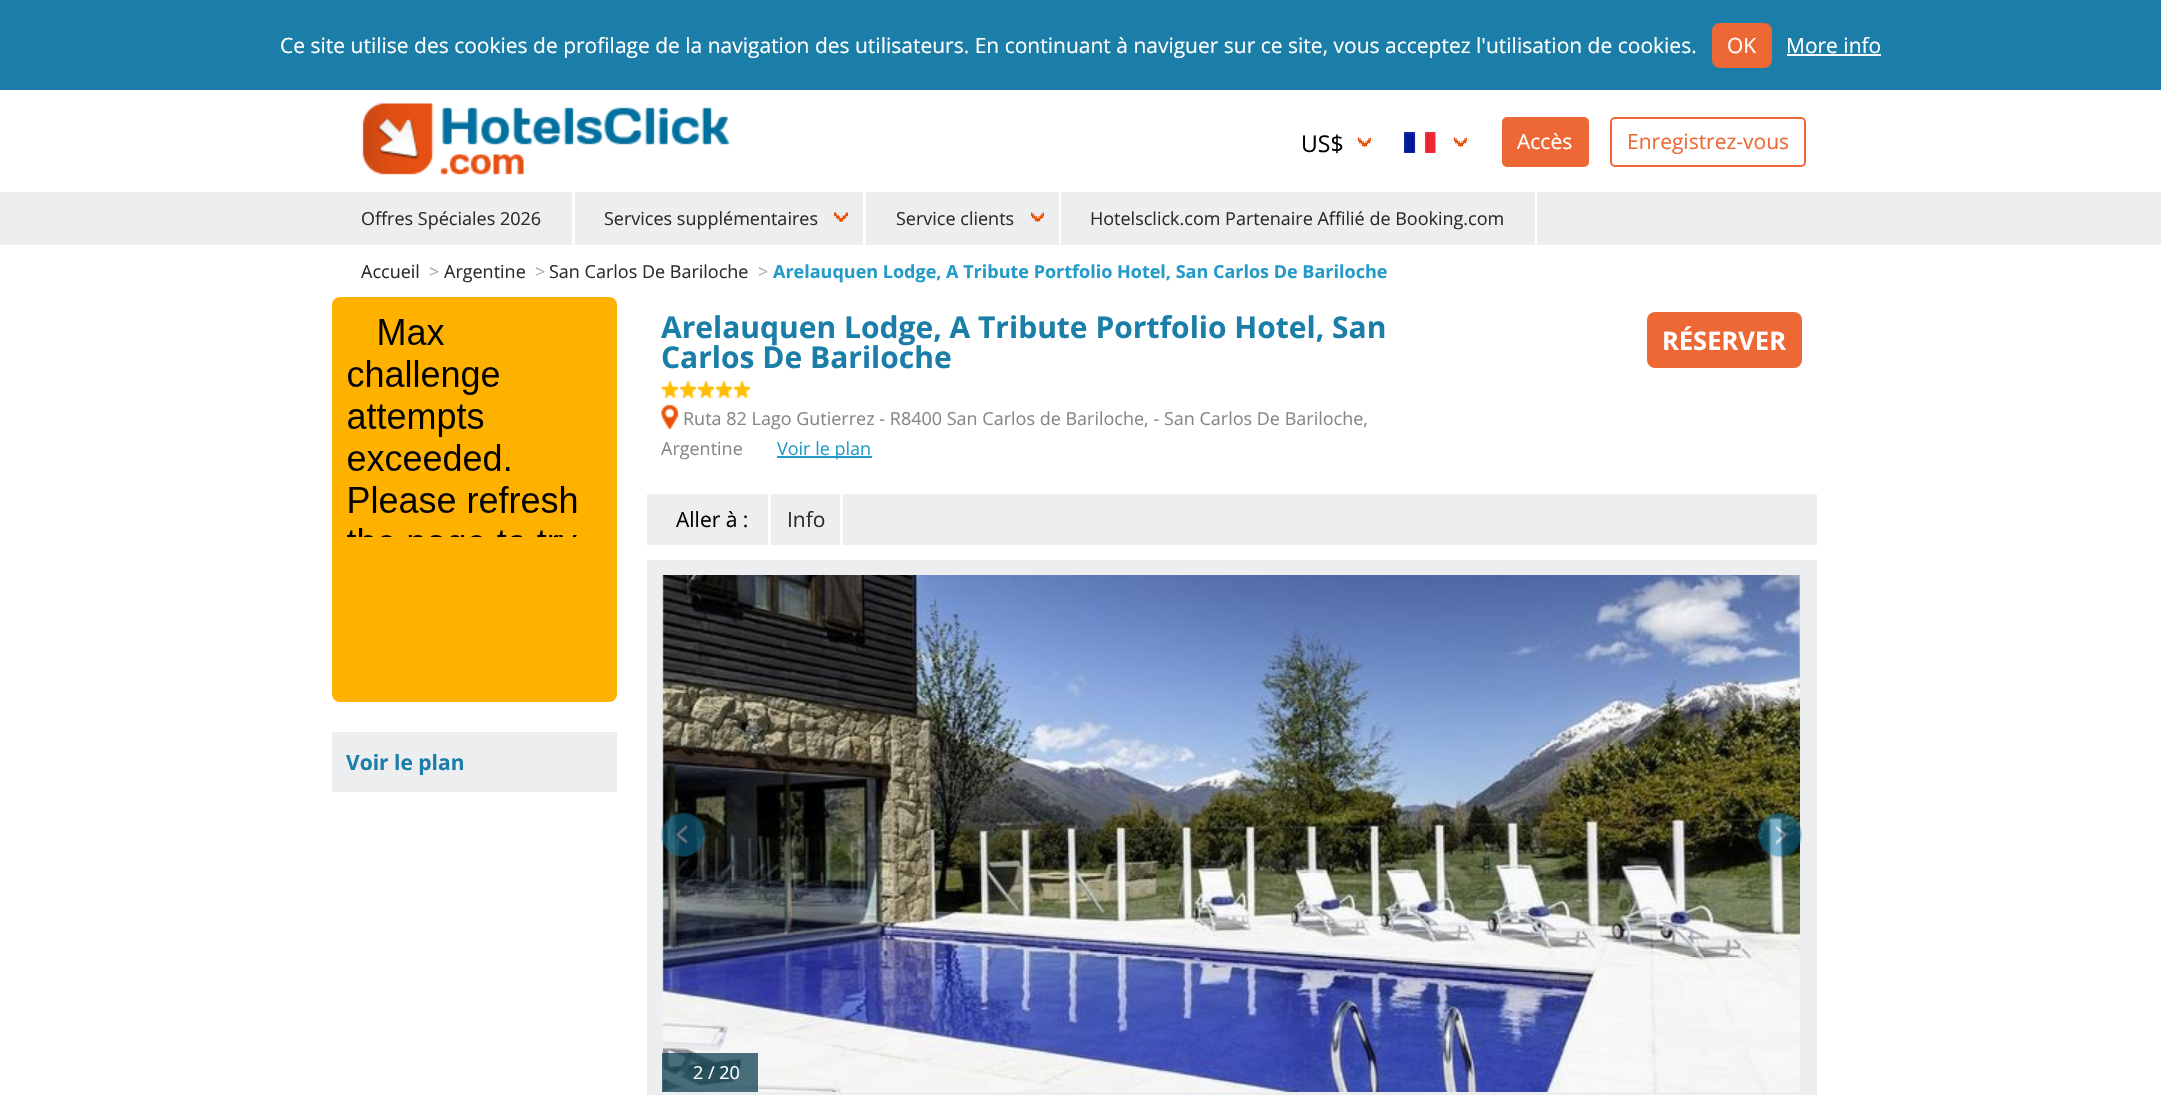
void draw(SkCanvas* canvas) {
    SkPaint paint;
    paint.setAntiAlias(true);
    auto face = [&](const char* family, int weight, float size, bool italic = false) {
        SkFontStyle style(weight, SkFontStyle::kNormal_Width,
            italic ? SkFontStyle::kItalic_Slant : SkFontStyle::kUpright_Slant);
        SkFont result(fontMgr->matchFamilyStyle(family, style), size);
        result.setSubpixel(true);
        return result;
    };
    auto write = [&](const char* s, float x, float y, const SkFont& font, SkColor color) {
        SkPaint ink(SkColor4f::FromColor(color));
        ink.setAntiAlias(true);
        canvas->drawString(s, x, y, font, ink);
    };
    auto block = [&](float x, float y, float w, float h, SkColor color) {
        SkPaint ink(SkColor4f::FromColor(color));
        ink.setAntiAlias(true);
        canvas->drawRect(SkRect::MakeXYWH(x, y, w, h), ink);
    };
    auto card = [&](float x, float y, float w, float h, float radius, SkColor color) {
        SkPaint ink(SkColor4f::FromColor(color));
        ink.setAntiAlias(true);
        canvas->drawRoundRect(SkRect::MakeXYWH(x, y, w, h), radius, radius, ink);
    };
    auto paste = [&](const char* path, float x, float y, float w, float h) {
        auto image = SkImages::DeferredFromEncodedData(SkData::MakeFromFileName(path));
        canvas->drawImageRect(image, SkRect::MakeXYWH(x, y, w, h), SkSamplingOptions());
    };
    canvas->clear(SK_ColorWHITE);
    block(0, 0, 2161, 90, SkColorSetRGB(27, 126, 168));
    auto kFont1 = face("Open Sans", 400, 21);
    write("Ce site utilise des cookies de profilage de la navigation des utilisateurs. En continuant à naviguer sur ce site, vous acceptez l'utilisation de cookies.", 280, 53, kFont1, SK_ColorWHITE);
    card(1712, 23, 60, 45, 8, SkColorSetRGB(238, 104, 53));
    write("OK", 1727, 53, kFont1, SK_ColorWHITE);
    write("More info", 1786, 53, kFont1, SK_ColorWHITE);
    block(1787, 54, 94, 2, SK_ColorWHITE);
    paste("pic1.png", 362, 103, 368, 72);
    paste("pic2.png", 1358, 137, 13, 10);
    auto kFont2 = face("Open Sans", 400, 23);
    write("US$", 1301, 152, kFont2, SK_ColorBLACK);
    paste("pic2.png", 1454, 137, 13, 10);
    paste("pic3.png", 1404, 132, 32, 21);
    paint.setColor(SkColorSetRGB(238, 104, 53));
    canvas->drawRoundRect(SkRect::MakeXYWH(1503, 118, 85, 48), 4, 4, paint);
    paint.setStyle(SkPaint::kStroke_Style);
    paint.setStrokeWidth(2);
    canvas->drawRoundRect(SkRect::MakeXYWH(1503, 118, 85, 48), 4, 4, paint);
    write("Accès", 1517, 149, kFont1, SK_ColorWHITE);
    canvas->drawRoundRect(SkRect::MakeXYWH(1611, 118, 194, 48), 4, 4, paint);
    write("Enregistrez-vous", 1627, 149, kFont1, SkColorSetRGB(238, 104, 53));
    block(0, 192, 2161, 53, SkColorSetRGB(237, 238, 240));
    block(572, 192, 3, 53, SK_ColorWHITE);
    auto kFont3 = face("Open Sans", 400, 18);
    write("Offres Spéciales 2026", 361, 225, kFont3, SkColorSetRGB(44, 44, 44));
    paste("pic4.png", 834, 212, 14, 10);
    block(863, 192, 3, 53, SK_ColorWHITE);
    write("Services supplémentaires", 604, 225, kFont3, SkColorSetRGB(44, 44, 44));
    paste("pic5.png", 1031, 212, 13, 10);
    block(1059, 192, 2, 53, SK_ColorWHITE);
    write("Service clients", 896, 225, kFont3, SkColorSetRGB(44, 44, 44));
    block(1535, 192, 2, 53, SK_ColorWHITE);
    write("Hotelsclick.com Partenaire Affilié de Booking.com", 1090, 225, kFont3, SkColorSetRGB(44, 44, 44));
    write("Accueil", 361, 278, kFont3, SkColorSetRGB(44, 44, 44));
    write(">", 429, 278, kFont3, SkColorSetRGB(172, 172, 172));
    write("Argentine", 444, 278, kFont3, SkColorSetRGB(44, 44, 44));
    write(">", 535, 278, kFont3, SkColorSetRGB(172, 172, 172));
    write("San Carlos De Bariloche", 549, 278, kFont3, SkColorSetRGB(44, 44, 44));
    write(">", 758, 278, kFont3, SkColorSetRGB(172, 172, 172));
    auto kFont4 = face("Open Sans", 700, 18);
    write("Arelauquen Lodge, A Tribute Portfolio Hotel, San Carlos De Bariloche", 773, 278, kFont4, SkColorSetRGB(36, 154, 201));
    card(332, 297, 285, 405, 8, SkColorSetRGB(255, 177, 0));
    paste("pic6.png", 347, 319, 230, 218);
    block(332, 732, 285, 60, SkColorSetRGB(237, 238, 240));
    auto kFont5 = face("Open Sans", 700, 21);
    write("Voir le plan", 346, 770, kFont5, SkColorSetRGB(27, 126, 168));
    auto kFont6 = face("Open Sans", 700, 30);
    write("Arelauquen Lodge, A Tribute Portfolio Hotel, San", 661, 338, kFont6, SkColorSetRGB(27, 126, 168));
    write("Carlos De Bariloche", 661, 368, kFont6, SkColorSetRGB(27, 126, 168));
    paste("pic7.png", 661, 381, 89, 17);
    paste("pic8.png", 661, 404, 18, 26);
    write("Ruta 82 Lago Gutierrez - R8400 San Carlos de Bariloche, - San Carlos De Bariloche,", 683, 425, kFont3, SkColorSetRGB(135, 135, 135));
    write("Argentine", 661, 455, kFont3, SkColorSetRGB(135, 135, 135));
    block(777, 456, 95, 2, SkColorSetRGB(36, 154, 201));
    write("Voir le plan", 777, 455, kFont3, SkColorSetRGB(36, 154, 201));
    card(1647, 312, 155, 56, 8, SkColorSetRGB(238, 104, 53));
    auto kFont7 = face("Open Sans", 700, 25.5f);
    write("RÉSERVER", 1662, 350, kFont7, SK_ColorWHITE);
    block(647, 494, 1170, 51, SkColorSetRGB(237, 238, 240));
    write("Aller à :", 676, 527, kFont1, SK_ColorBLACK);
    block(840, 494, 3, 51, SK_ColorWHITE);
    block(768, 494, 3, 51, SK_ColorWHITE);
    write("Info", 787, 527, kFont1, SkColorSetRGB(44, 44, 44));
    block(647, 560, 1170, 535, SkColorSetRGB(237, 238, 240));
    paste("pic11.png", 662, 575, 1138, 517);
    paste("pic9.png", 661, 812, 45, 45);
    paste("pic10.png", 1757, 812, 45, 45);
    block(662, 1053, 96, 39, SkColorSetARGB(191, 13, 66, 80));
    write("2 / 20", 693, 1079, kFont3, SK_ColorWHITE);
}
